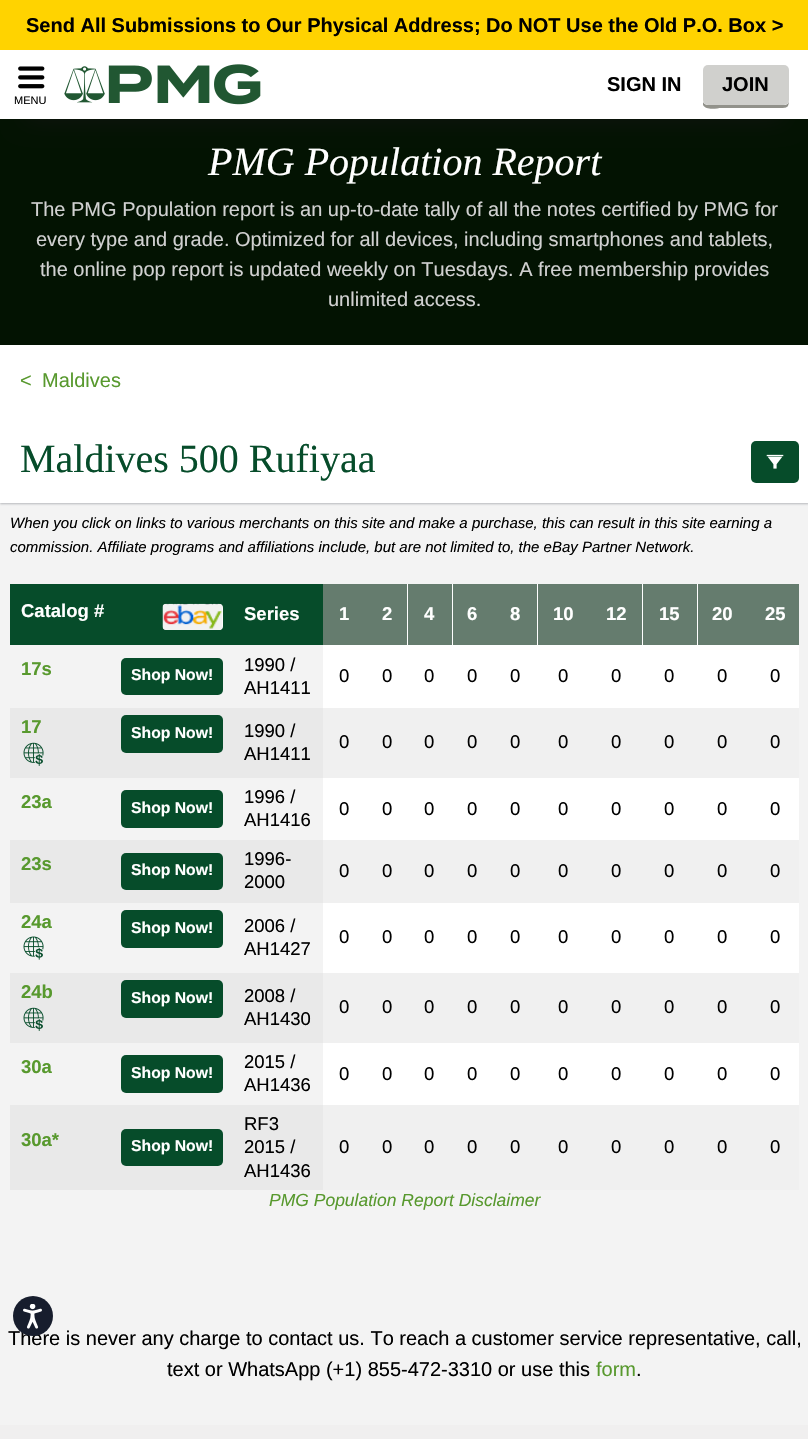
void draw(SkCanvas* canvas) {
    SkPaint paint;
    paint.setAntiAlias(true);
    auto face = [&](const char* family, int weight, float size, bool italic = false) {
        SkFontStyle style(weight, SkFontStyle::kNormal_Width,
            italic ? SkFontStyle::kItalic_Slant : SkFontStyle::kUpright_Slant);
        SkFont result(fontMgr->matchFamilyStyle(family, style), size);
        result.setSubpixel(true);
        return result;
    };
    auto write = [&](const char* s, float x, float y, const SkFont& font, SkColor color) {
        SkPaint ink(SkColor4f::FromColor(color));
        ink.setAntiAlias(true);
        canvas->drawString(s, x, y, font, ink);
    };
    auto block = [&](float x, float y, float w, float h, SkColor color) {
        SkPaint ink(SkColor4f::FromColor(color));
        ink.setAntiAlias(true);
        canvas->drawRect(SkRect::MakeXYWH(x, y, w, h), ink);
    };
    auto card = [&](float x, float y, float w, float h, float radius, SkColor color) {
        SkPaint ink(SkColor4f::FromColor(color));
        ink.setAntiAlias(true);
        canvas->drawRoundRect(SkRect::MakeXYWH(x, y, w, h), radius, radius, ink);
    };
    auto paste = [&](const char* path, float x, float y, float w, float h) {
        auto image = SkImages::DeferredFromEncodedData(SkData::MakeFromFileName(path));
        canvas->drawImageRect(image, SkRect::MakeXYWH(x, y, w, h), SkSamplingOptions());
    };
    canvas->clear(SkColorSetRGB(243, 243, 243));
    block(0, 0, 808, 50, SkColorSetRGB(255, 211, 0));
    auto kFont1 = face("Liberation Sans", 700, 20);
    write("Send All Submissions to Our Physical Address; Do NOT Use the Old P.O. Box >", 26, 32, kFont1, SK_ColorBLACK);
    block(0, 119, 808, 226, SkColorSetRGB(3, 19, 2));
    paint.setColor(SkColorSetRGB(17, 17, 17));
    paint.setMaskFilter(SkMaskFilter::MakeBlur(kNormal_SkBlurStyle, 12.5f));
    canvas->drawRect(SkRect::MakeXYWH(25, 100, 759, 19), paint);
    paint.setMaskFilter(nullptr);
    block(0, 50, 808, 69, SK_ColorWHITE);
    paste("pic1.png", 64, 64, 197, 41);
    write("SIGN IN", 607, 91, kFont1, SK_ColorBLACK);
    paint.setColor(SkColorSetRGB(146, 146, 139));
    canvas->drawPath(SkPathBuilder().moveTo(703, 102).lineTo(703, 105).cubicTo(706, 111, 718, 108, 721, 108).lineTo(771, 108).cubicTo(790, 108, 789, 110, 789, 93).lineTo(789, 71).lineTo(789, 100).cubicTo(789, 103, 787, 105, 784, 105).lineTo(708, 105).cubicTo(706, 105, 704, 104, 703, 102).close().detach(), paint);
    card(703, 65, 86, 40, 5, SkColorSetRGB(208, 208, 205));
    write("JOIN", 722, 91, kFont1, SK_ColorBLACK);
    paste("pic2.png", 18, 66, 27, 23);
    auto kFont2 = face("Liberation Sans", 400, 11);
    write("MENU", 14, 104, kFont2, SK_ColorBLACK);
    auto kFont3 = face("Liberation Serif", 400, 40, true);
    write("PMG Population Report", 208, 175, kFont3, SK_ColorWHITE);
    auto kFont4 = face("Liberation Sans", 400, 20);
    write("The PMG Population report is an up-to-date tally of all the notes certified by PMG for", 31, 216, kFont4, SkColorSetRGB(209, 209, 209));
    write("every type and grade. Optimized for all devices, including smartphones and tablets,", 36, 246, kFont4, SkColorSetRGB(209, 209, 209));
    write("the online pop report is updated weekly on Tuesdays. A free membership provides", 40, 276, kFont4, SkColorSetRGB(209, 209, 209));
    write("unlimited access.", 328, 306, kFont4, SkColorSetRGB(209, 209, 209));
    block(0, 345, 808, 71, SK_ColorWHITE);
    write("<", 20, 387, kFont4, SkColorSetRGB(88, 153, 46));
    write("Maldives", 42, 387, kFont4, SkColorSetRGB(88, 153, 46));
    paint.setColor(SkColorSetARGB(77, 40, 46, 60));
    paint.setMaskFilter(SkMaskFilter::MakeBlur(kNormal_SkBlurStyle, 1));
    canvas->drawRect(SkRect::MakeXYWH(0, 418, 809, 86), paint);
    paint.setMaskFilter(nullptr);
    block(0, 416, 808, 87, SK_ColorWHITE);
    auto kFont5 = face("Liberation Serif", 400, 40);
    write("Maldives 500 Rufiyaa", 20, 472, kFont5, SkColorSetRGB(6, 76, 42));
    card(751, 441, 48, 42, 5, SkColorSetRGB(6, 76, 42));
    paste("pic3.png", 766, 454, 18, 15);
    auto kFont6 = face("Liberation Sans", 400, 15, true);
    write("When you click on links to various merchants on this site and make a purchase, this can result in this site earning a", 10, 528, kFont6, SK_ColorBLACK);
    write("commission. Affiliate programs and affiliations include, but are not limited to, the eBay Partner Network.", 10, 552, kFont6, SK_ColorBLACK);
    block(10, 584, 313, 61, SkColorSetRGB(6, 76, 42));
    auto kFont7 = face("Liberation Sans", 700, 18.5f);
    write("Catalog #", 21, 617, kFont7, SK_ColorWHITE);
    card(163, 604, 60, 26, 4, SK_ColorWHITE);
    paste("pic4.png", 162, 603, 61, 27);
    write("Series", 244, 620, kFont7, SK_ColorWHITE);
    write("17s", 21, 675, kFont7, SkColorSetRGB(88, 153, 46));
    card(121, 658, 102, 37, 5, SkColorSetRGB(6, 76, 42));
    auto kFont8 = face("Liberation Sans", 700, 15.75f);
    write("Shop Now!", 131, 680, kFont8, SK_ColorWHITE);
    auto kFont9 = face("Liberation Sans", 400, 18.5f);
    write("1990 /", 244, 671, kFont9, SK_ColorBLACK);
    write("AH1411", 244, 694, kFont9, SK_ColorBLACK);
    block(10, 708, 313, 70, SkColorSetRGB(233, 233, 233));
    write("17", 21, 733, kFont7, SkColorSetRGB(88, 153, 46));
    card(121, 715, 102, 38, 5, SkColorSetRGB(6, 76, 42));
    write("Shop Now!", 131, 738, kFont8, SK_ColorWHITE);
    paste("pic5.png", 23, 742, 21, 24);
    write("1990 /", 244, 737, kFont9, SK_ColorBLACK);
    write("AH1411", 244, 760, kFont9, SK_ColorBLACK);
    write("23a", 21, 808, kFont7, SkColorSetRGB(88, 153, 46));
    card(121, 790, 102, 38, 5, SkColorSetRGB(6, 76, 42));
    write("Shop Now!", 131, 813, kFont8, SK_ColorWHITE);
    write("1996 /", 244, 803, kFont9, SK_ColorBLACK);
    write("AH1416", 244, 826, kFont9, SK_ColorBLACK);
    block(10, 840, 313, 63, SkColorSetRGB(233, 233, 233));
    write("23s", 21, 870, kFont7, SkColorSetRGB(88, 153, 46));
    card(121, 853, 102, 37, 5, SkColorSetRGB(6, 76, 42));
    write("Shop Now!", 131, 875, kFont8, SK_ColorWHITE);
    write("1996-", 244, 865, kFont9, SK_ColorBLACK);
    write("2000", 244, 888, kFont9, SK_ColorBLACK);
    write("24a", 21, 928, kFont7, SkColorSetRGB(88, 153, 46));
    card(121, 910, 102, 38, 5, SkColorSetRGB(6, 76, 42));
    write("Shop Now!", 131, 933, kFont8, SK_ColorWHITE);
    paste("pic6.png", 23, 936, 21, 24);
    write("2006 /", 244, 932, kFont9, SK_ColorBLACK);
    write("AH1427", 244, 955, kFont9, SK_ColorBLACK);
    block(10, 973, 313, 70, SkColorSetRGB(233, 233, 233));
    write("24b", 21, 998, kFont7, SkColorSetRGB(88, 153, 46));
    card(121, 980, 102, 38, 5, SkColorSetRGB(6, 76, 42));
    write("Shop Now!", 131, 1003, kFont8, SK_ColorWHITE);
    paste("pic5.png", 23, 1007, 21, 24);
    write("2008 /", 244, 1002, kFont9, SK_ColorBLACK);
    write("AH1430", 244, 1025, kFont9, SK_ColorBLACK);
    write("30a", 21, 1073, kFont7, SkColorSetRGB(88, 153, 46));
    card(121, 1055, 102, 38, 5, SkColorSetRGB(6, 76, 42));
    write("Shop Now!", 131, 1078, kFont8, SK_ColorWHITE);
    write("2015 /", 244, 1068, kFont9, SK_ColorBLACK);
    write("AH1436", 244, 1091, kFont9, SK_ColorBLACK);
    block(10, 1105, 313, 85, SkColorSetRGB(233, 233, 233));
    write("30a*", 21, 1146, kFont7, SkColorSetRGB(88, 153, 46));
    card(121, 1129, 102, 37, 5, SkColorSetRGB(6, 76, 42));
    write("Shop Now!", 131, 1151, kFont8, SK_ColorWHITE);
    write("RF3", 244, 1130, kFont9, SK_ColorBLACK);
    write("2015 /", 244, 1153, kFont9, SK_ColorBLACK);
    write("AH1436", 244, 1177, kFont9, SK_ColorBLACK);
    block(407, 584, 291, 61, SK_ColorWHITE);
    block(323, 584, 42, 61, SkColorSetRGB(101, 124, 110));
    write("1", 339, 620, kFont7, SK_ColorWHITE);
    block(365, 584, 42, 61, SkColorSetRGB(101, 124, 110));
    write("2", 382, 620, kFont7, SK_ColorWHITE);
    block(408, 584, 44, 61, SkColorSetRGB(101, 124, 110));
    write("4", 424, 620, kFont7, SK_ColorWHITE);
    block(453, 584, 41, 61, SkColorSetRGB(101, 124, 110));
    write("6", 467, 620, kFont7, SK_ColorWHITE);
    block(494, 584, 43, 61, SkColorSetRGB(101, 124, 110));
    write("8", 510, 620, kFont7, SK_ColorWHITE);
    block(538, 584, 52, 61, SkColorSetRGB(101, 124, 110));
    write("10", 553, 620, kFont7, SK_ColorWHITE);
    block(590, 584, 52, 61, SkColorSetRGB(101, 124, 110));
    write("12", 606, 620, kFont7, SK_ColorWHITE);
    block(643, 584, 54, 61, SkColorSetRGB(101, 124, 110));
    write("15", 659, 620, kFont7, SK_ColorWHITE);
    block(698, 584, 51, 61, SkColorSetRGB(101, 124, 110));
    write("20", 712, 620, kFont7, SK_ColorWHITE);
    block(749, 584, 50, 61, SkColorSetRGB(101, 124, 110));
    write("25", 765, 620, kFont7, SK_ColorWHITE);
    block(323, 645, 476, 63, SK_ColorWHITE);
    write("0", 339, 682, kFont9, SK_ColorBLACK);
    write("0", 382, 682, kFont9, SK_ColorBLACK);
    write("0", 424, 682, kFont9, SK_ColorBLACK);
    write("0", 467, 682, kFont9, SK_ColorBLACK);
    write("0", 510, 682, kFont9, SK_ColorBLACK);
    write("0", 558, 682, kFont9, SK_ColorBLACK);
    write("0", 611, 682, kFont9, SK_ColorBLACK);
    write("0", 664, 682, kFont9, SK_ColorBLACK);
    write("0", 717, 682, kFont9, SK_ColorBLACK);
    write("0", 770, 682, kFont9, SK_ColorBLACK);
    block(323, 708, 476, 70, SkColorSetRGB(240, 240, 240));
    write("0", 339, 748, kFont9, SK_ColorBLACK);
    write("0", 382, 748, kFont9, SK_ColorBLACK);
    write("0", 424, 748, kFont9, SK_ColorBLACK);
    write("0", 467, 748, kFont9, SK_ColorBLACK);
    write("0", 510, 748, kFont9, SK_ColorBLACK);
    write("0", 558, 748, kFont9, SK_ColorBLACK);
    write("0", 611, 748, kFont9, SK_ColorBLACK);
    write("0", 664, 748, kFont9, SK_ColorBLACK);
    write("0", 717, 748, kFont9, SK_ColorBLACK);
    write("0", 770, 748, kFont9, SK_ColorBLACK);
    block(323, 778, 476, 62, SK_ColorWHITE);
    write("0", 339, 815, kFont9, SK_ColorBLACK);
    write("0", 382, 815, kFont9, SK_ColorBLACK);
    write("0", 424, 815, kFont9, SK_ColorBLACK);
    write("0", 467, 815, kFont9, SK_ColorBLACK);
    write("0", 510, 815, kFont9, SK_ColorBLACK);
    write("0", 558, 815, kFont9, SK_ColorBLACK);
    write("0", 611, 815, kFont9, SK_ColorBLACK);
    write("0", 664, 815, kFont9, SK_ColorBLACK);
    write("0", 717, 815, kFont9, SK_ColorBLACK);
    write("0", 770, 815, kFont9, SK_ColorBLACK);
    block(323, 840, 476, 63, SkColorSetRGB(240, 240, 240));
    write("0", 339, 877, kFont9, SK_ColorBLACK);
    write("0", 382, 877, kFont9, SK_ColorBLACK);
    write("0", 424, 877, kFont9, SK_ColorBLACK);
    write("0", 467, 877, kFont9, SK_ColorBLACK);
    write("0", 510, 877, kFont9, SK_ColorBLACK);
    write("0", 558, 877, kFont9, SK_ColorBLACK);
    write("0", 611, 877, kFont9, SK_ColorBLACK);
    write("0", 664, 877, kFont9, SK_ColorBLACK);
    write("0", 717, 877, kFont9, SK_ColorBLACK);
    write("0", 770, 877, kFont9, SK_ColorBLACK);
    block(323, 903, 476, 70, SK_ColorWHITE);
    write("0", 339, 943, kFont9, SK_ColorBLACK);
    write("0", 382, 943, kFont9, SK_ColorBLACK);
    write("0", 424, 943, kFont9, SK_ColorBLACK);
    write("0", 467, 943, kFont9, SK_ColorBLACK);
    write("0", 510, 943, kFont9, SK_ColorBLACK);
    write("0", 558, 943, kFont9, SK_ColorBLACK);
    write("0", 611, 943, kFont9, SK_ColorBLACK);
    write("0", 664, 943, kFont9, SK_ColorBLACK);
    write("0", 717, 943, kFont9, SK_ColorBLACK);
    write("0", 770, 943, kFont9, SK_ColorBLACK);
    block(323, 973, 476, 70, SkColorSetRGB(240, 240, 240));
    write("0", 339, 1013, kFont9, SK_ColorBLACK);
    write("0", 382, 1013, kFont9, SK_ColorBLACK);
    write("0", 424, 1013, kFont9, SK_ColorBLACK);
    write("0", 467, 1013, kFont9, SK_ColorBLACK);
    write("0", 510, 1013, kFont9, SK_ColorBLACK);
    write("0", 558, 1013, kFont9, SK_ColorBLACK);
    write("0", 611, 1013, kFont9, SK_ColorBLACK);
    write("0", 664, 1013, kFont9, SK_ColorBLACK);
    write("0", 717, 1013, kFont9, SK_ColorBLACK);
    write("0", 770, 1013, kFont9, SK_ColorBLACK);
    block(323, 1043, 476, 62, SK_ColorWHITE);
    write("0", 339, 1080, kFont9, SK_ColorBLACK);
    write("0", 382, 1080, kFont9, SK_ColorBLACK);
    write("0", 424, 1080, kFont9, SK_ColorBLACK);
    write("0", 467, 1080, kFont9, SK_ColorBLACK);
    write("0", 510, 1080, kFont9, SK_ColorBLACK);
    write("0", 558, 1080, kFont9, SK_ColorBLACK);
    write("0", 611, 1080, kFont9, SK_ColorBLACK);
    write("0", 664, 1080, kFont9, SK_ColorBLACK);
    write("0", 717, 1080, kFont9, SK_ColorBLACK);
    write("0", 770, 1080, kFont9, SK_ColorBLACK);
    block(323, 1105, 476, 85, SkColorSetRGB(240, 240, 240));
    write("0", 339, 1153, kFont9, SK_ColorBLACK);
    write("0", 382, 1153, kFont9, SK_ColorBLACK);
    write("0", 424, 1153, kFont9, SK_ColorBLACK);
    write("0", 467, 1153, kFont9, SK_ColorBLACK);
    write("0", 510, 1153, kFont9, SK_ColorBLACK);
    write("0", 558, 1153, kFont9, SK_ColorBLACK);
    write("0", 611, 1153, kFont9, SK_ColorBLACK);
    write("0", 664, 1153, kFont9, SK_ColorBLACK);
    write("0", 717, 1153, kFont9, SK_ColorBLACK);
    write("0", 770, 1153, kFont9, SK_ColorBLACK);
    auto kFont10 = face("Liberation Sans", 400, 17.5f, true);
    write("PMG Population Report Disclaimer", 269, 1206, kFont10, SkColorSetRGB(88, 153, 46));
    write("There is never any charge to contact us. To reach a customer service representative, call,", 8, 1345, kFont4, SK_ColorBLACK);
    write("text or WhatsApp (+1) 855-472-3310 or use this", 167, 1376, kFont4, SK_ColorBLACK);
    write("form", 596, 1376, kFont4, SkColorSetRGB(88, 153, 46));
    write(".", 636, 1376, kFont4, SK_ColorBLACK);
    block(0, 1425, 808, 14, SkColorSetRGB(240, 239, 239));
    paint.setColor(SkColorSetRGB(23, 29, 45));
    canvas->drawCircle(33, 1316, 20, paint);
    paste("pic7.png", 23, 1304, 19, 25);
}
